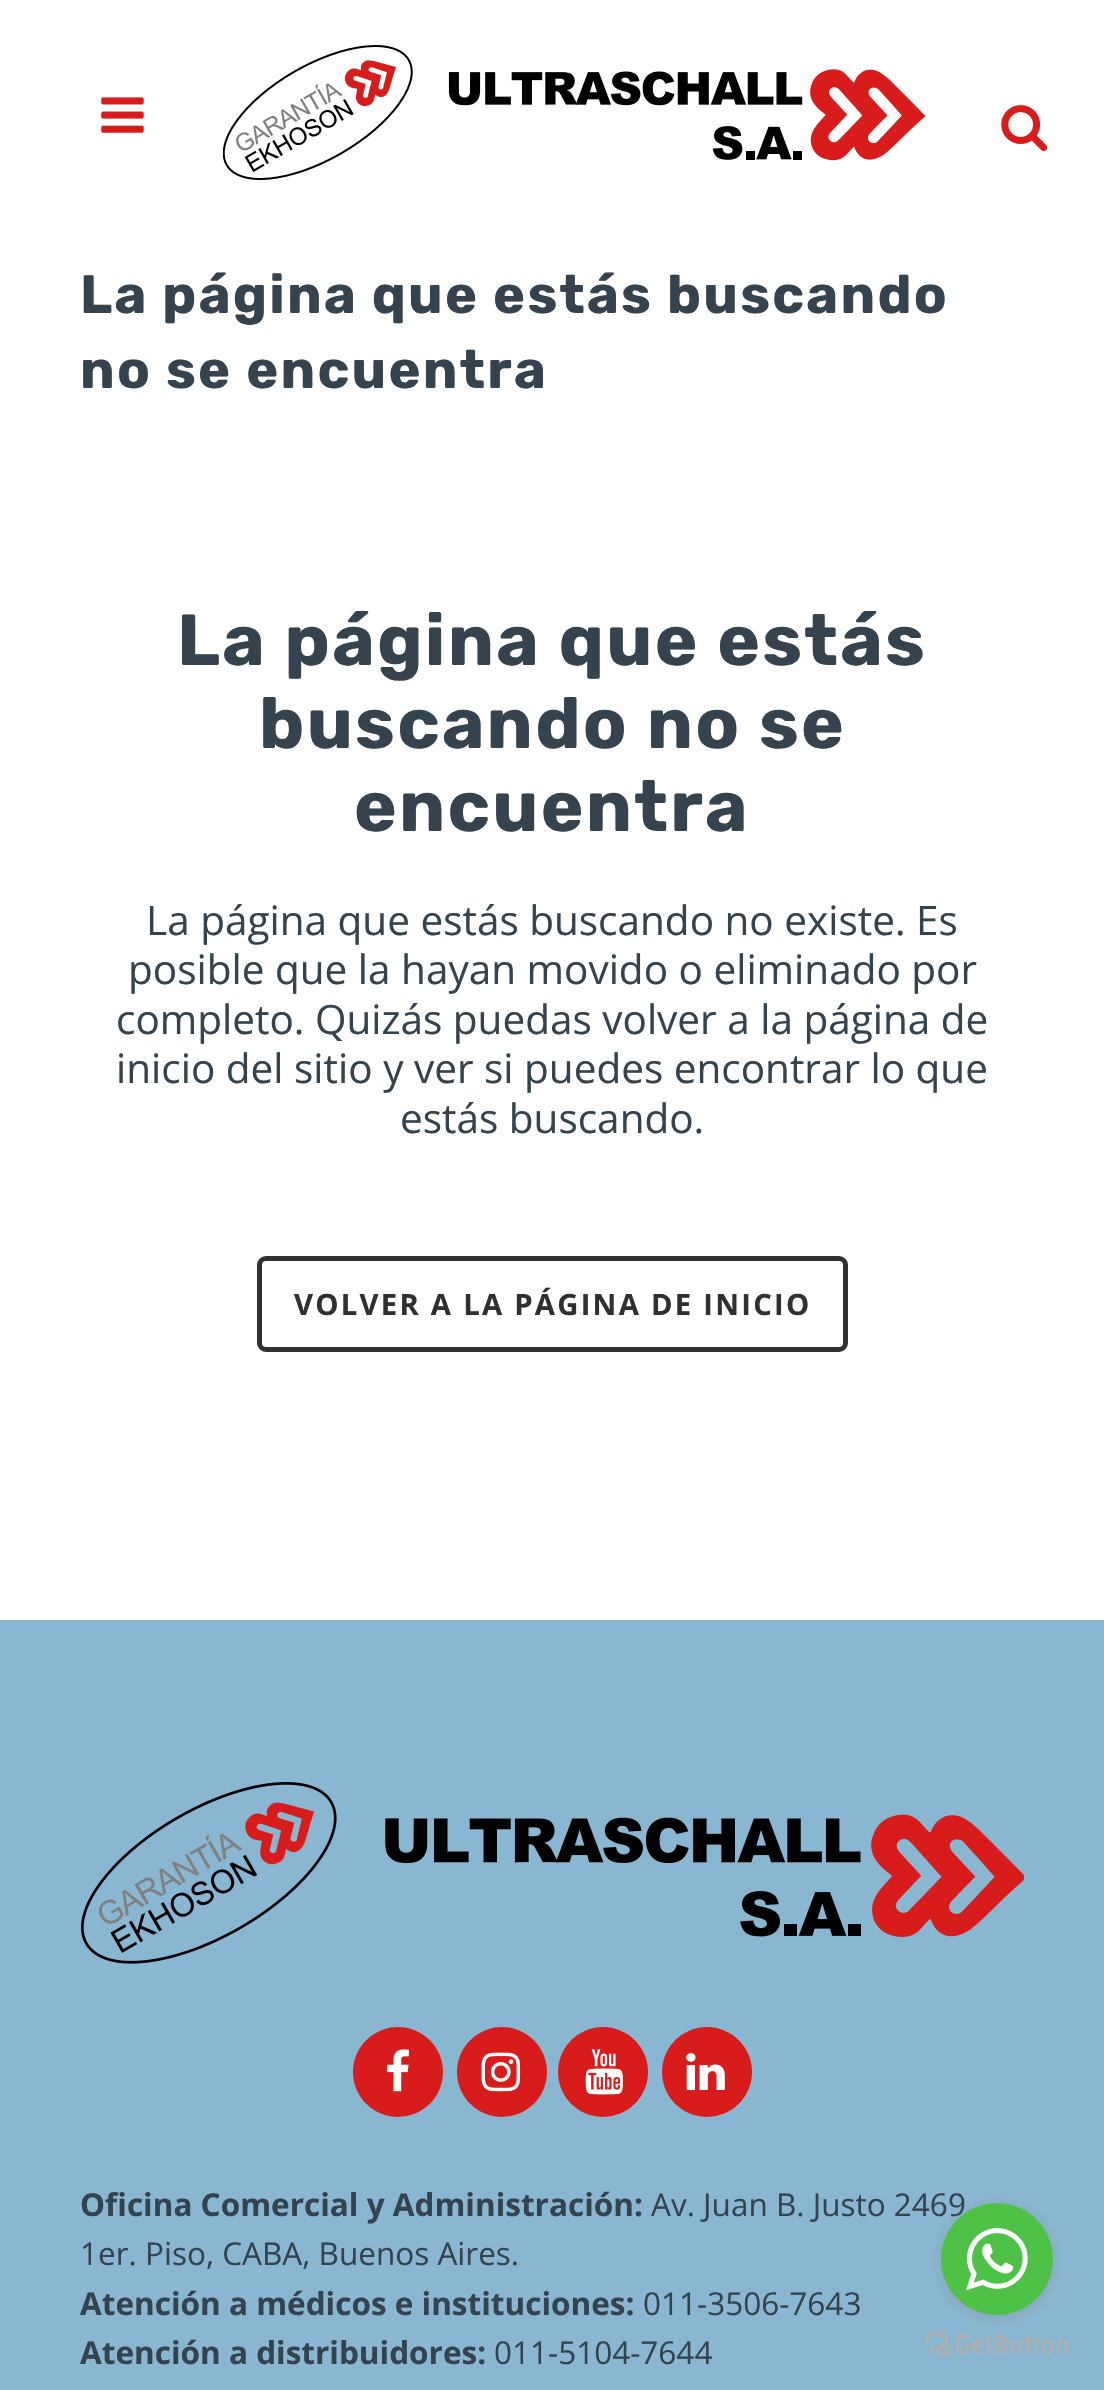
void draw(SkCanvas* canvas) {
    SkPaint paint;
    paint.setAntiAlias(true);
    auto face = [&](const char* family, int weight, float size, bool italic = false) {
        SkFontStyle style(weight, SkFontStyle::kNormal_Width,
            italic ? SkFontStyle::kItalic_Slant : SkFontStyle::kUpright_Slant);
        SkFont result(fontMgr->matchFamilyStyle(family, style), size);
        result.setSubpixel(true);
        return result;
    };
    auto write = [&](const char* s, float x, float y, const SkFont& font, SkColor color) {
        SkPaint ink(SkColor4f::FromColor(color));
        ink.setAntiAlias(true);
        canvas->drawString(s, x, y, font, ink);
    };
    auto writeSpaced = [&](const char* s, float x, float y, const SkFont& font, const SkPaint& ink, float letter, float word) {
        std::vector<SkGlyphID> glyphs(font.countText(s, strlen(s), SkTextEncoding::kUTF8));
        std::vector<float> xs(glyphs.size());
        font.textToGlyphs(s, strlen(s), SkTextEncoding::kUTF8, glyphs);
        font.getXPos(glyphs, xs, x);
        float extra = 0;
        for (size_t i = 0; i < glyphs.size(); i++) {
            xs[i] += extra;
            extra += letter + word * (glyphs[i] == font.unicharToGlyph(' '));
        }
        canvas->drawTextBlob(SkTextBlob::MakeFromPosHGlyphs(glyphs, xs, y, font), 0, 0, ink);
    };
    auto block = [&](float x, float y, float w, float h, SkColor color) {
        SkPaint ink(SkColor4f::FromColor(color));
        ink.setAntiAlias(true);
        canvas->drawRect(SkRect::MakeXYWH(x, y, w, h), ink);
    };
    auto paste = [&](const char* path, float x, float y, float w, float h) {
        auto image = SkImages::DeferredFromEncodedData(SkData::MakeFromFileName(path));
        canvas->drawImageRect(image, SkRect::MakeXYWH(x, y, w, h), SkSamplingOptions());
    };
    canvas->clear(SK_ColorWHITE);
    paste("pic1.png", 101, 97, 43, 36);
    paste("pic2.png", 223, 45, 702, 135);
    paste("pic3.png", 1001, 105, 47, 47);
    auto kFont1 = face("Rubik", 700, 54);
    paint.setColor(SkColorSetRGB(52, 67, 77));
    writeSpaced("La página que estás buscando", 80, 313, kFont1, paint, 2.25f, 0);
    writeSpaced("no se encuentra", 80, 388, kFont1, paint, 2.25f, 0);
    auto kFont2 = face("Rubik", 700, 72);
    writeSpaced("La página que estás", 177, 665, kFont2, paint, 2.25f, 0);
    writeSpaced("buscando no se", 259, 748, kFont2, paint, 2.25f, 0);
    writeSpaced("encuentra", 354, 831, kFont2, paint, 2.25f, 0);
    auto kFont3 = face("Open Sans", 400, 40.5f);
    write("La página que estás buscando no existe. Es", 146, 935, kFont3, SkColorSetRGB(52, 67, 77));
    write("posible que la hayan movido o eliminado por", 128, 984, kFont3, SkColorSetRGB(52, 67, 77));
    write("completo. Quizás puedas volver a la página de", 116, 1034, kFont3, SkColorSetRGB(52, 67, 77));
    write("inicio del sitio y ver si puedes encontrar lo que", 116, 1083, kFont3, SkColorSetRGB(52, 67, 77));
    write("estás buscando.", 400, 1133, kFont3, SkColorSetRGB(52, 67, 77));
    paint.setStyle(SkPaint::kStroke_Style);
    paint.setStrokeWidth(5);
    paint.setColor(SkColorSetRGB(48, 48, 48));
    canvas->drawRoundRect(SkRect::MakeXYWH(259.5f, 1258.5f, 586, 91), 6.5f, 6.5f, paint);
    auto kFont4 = face("Open Sans", 700, 29.25f);
    paint.setStyle(SkPaint::kFill_Style);
    writeSpaced("VOLVER A LA PÁGINA DE INICIO", 294, 1315, kFont4, paint, 2.25f, 0);
    block(0, 1620, 1104, 770, SkColorSetRGB(137, 183, 209));
    paste("pic4.png", 81, 1782, 943, 182);
    paint.setColor(SkColorSetRGB(216, 27, 27));
    canvas->drawCircle(398, 2072, 45, paint);
    paste("pic5.png", 387, 2049, 22, 43);
    canvas->drawCircle(502, 2072, 45, paint);
    paste("pic6.png", 481, 2052, 40, 40);
    canvas->drawCircle(603, 2072, 45, paint);
    paste("pic7.png", 585, 2049, 38, 46);
    canvas->drawCircle(707, 2072, 45, paint);
    paste("pic8.png", 686, 2053, 39, 37);
    auto kFont5 = face("Open Sans", 700, 31.5f);
    write("Oficina Comercial y Administración:", 80, 2216, kFont5, SkColorSetRGB(52, 67, 77));
    auto kFont6 = face("Open Sans", 400, 31.5f);
    write("Av. Juan B. Justo 2469", 651, 2216, kFont6, SkColorSetRGB(52, 67, 77));
    write("1er. Piso, CABA, Buenos Aires.", 80, 2265, kFont6, SkColorSetRGB(52, 67, 77));
    write("Atención a médicos e instituciones:", 80, 2315, kFont5, SkColorSetRGB(52, 67, 77));
    write("011-3506-7643", 643, 2315, kFont6, SkColorSetRGB(52, 67, 77));
    write("Atención a distribuidores:", 80, 2364, kFont5, SkColorSetRGB(52, 67, 77));
    write("011-5104-7644", 494, 2364, kFont6, SkColorSetRGB(52, 67, 77));
    paste("pic10.png", 925, 2331, 144, 25);
    paint.setColor(SkColorSetARGB(102, 136, 136, 136));
    paint.setMaskFilter(SkMaskFilter::MakeBlur(kNormal_SkBlurStyle, 8));
    canvas->drawRoundRect(SkRect::MakeXYWH(941, 2205, 112, 113), 56, 56, paint);
    paint.setMaskFilter(nullptr);
    paint.setColor(SkColorSetRGB(77, 194, 71));
    canvas->drawCircle(997, 2259, 56, paint);
    paste("pic9.png", 965, 2228, 63, 63);
}
